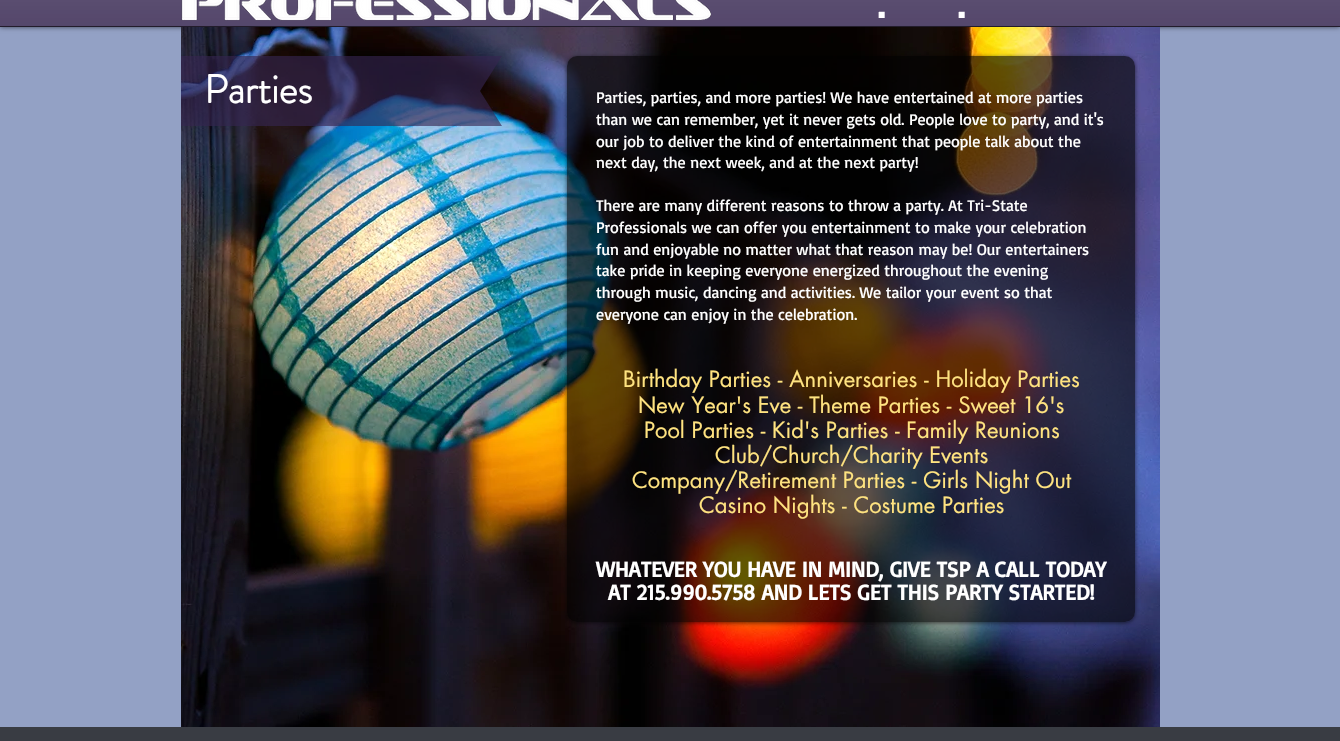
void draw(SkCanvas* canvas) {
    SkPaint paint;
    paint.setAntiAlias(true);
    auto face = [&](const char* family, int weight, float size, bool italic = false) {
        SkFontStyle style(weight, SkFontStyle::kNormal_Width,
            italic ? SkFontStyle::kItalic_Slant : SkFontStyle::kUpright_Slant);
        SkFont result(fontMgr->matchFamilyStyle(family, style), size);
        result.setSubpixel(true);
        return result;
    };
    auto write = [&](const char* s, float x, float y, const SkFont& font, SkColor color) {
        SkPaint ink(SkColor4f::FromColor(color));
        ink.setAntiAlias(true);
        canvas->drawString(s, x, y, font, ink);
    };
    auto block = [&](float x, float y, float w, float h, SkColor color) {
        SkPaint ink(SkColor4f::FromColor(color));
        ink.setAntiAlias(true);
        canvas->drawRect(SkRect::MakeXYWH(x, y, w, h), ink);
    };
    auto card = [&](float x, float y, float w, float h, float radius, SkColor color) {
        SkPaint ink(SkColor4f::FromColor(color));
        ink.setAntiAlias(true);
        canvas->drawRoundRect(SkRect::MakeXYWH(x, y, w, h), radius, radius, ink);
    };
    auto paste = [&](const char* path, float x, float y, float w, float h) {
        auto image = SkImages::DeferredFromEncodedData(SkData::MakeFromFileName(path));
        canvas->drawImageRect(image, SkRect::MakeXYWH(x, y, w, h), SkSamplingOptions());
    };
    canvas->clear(SkColorSetRGB(147, 161, 197));
    paint.setColor(SkColorSetARGB(153, 0, 0, 0));
    paint.setMaskFilter(SkMaskFilter::MakeBlur(kNormal_SkBlurStyle, 2.5f));
    canvas->drawRect(SkRect::MakeXYWH(0, -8, 1340, 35), paint);
    paint.setMaskFilter(nullptr);
    block(0, 0, 1340, 26, SkColorSetRGB(52, 36, 79));
    paste("pic1.png", 0, 0, 1340, 26);
    block(0, 26, 1340, 1, SkColorSetRGB(34, 28, 43));
    paste("pic2.png", 181, 0, 530, 21);
    auto kFont1 = face("Liberation Sans", 700, 41);
    write(".", 876, 18, kFont1, SK_ColorWHITE);
    write(".", 956, 18, kFont1, SK_ColorWHITE);
    paste("pic3.png", 181, 27, 979, 700);
    paint.setColor(SkColorSetARGB(161, 52, 36, 79));
    canvas->drawPath(SkPathBuilder().moveTo(502, 126).lineTo(181, 126).lineTo(181, 56).lineTo(502, 56).lineTo(480, 91).close().detach(), paint);
    auto kFont2 = face("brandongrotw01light", 700, 40);
    write("Parties", 204, 103, kFont2, SK_ColorWHITE);
    canvas->save();
    canvas->clipPath(SkPathBuilder(SkPathFillType::kEvenOdd).moveTo(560, 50).lineTo(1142, 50).lineTo(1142, 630).lineTo(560, 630).close().moveTo(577, 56).lineTo(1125, 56).cubicTo(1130.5f, 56, 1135, 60.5f, 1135, 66).lineTo(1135, 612).cubicTo(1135, 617.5f, 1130.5f, 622, 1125, 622).lineTo(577, 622).cubicTo(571.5f, 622, 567, 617.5f, 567, 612).lineTo(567, 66).cubicTo(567, 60.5f, 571.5f, 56, 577, 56).close().detach(), true);
    paint.setColor(SkColorSetARGB(153, 0, 0, 0));
    paint.setMaskFilter(SkMaskFilter::MakeBlur(kNormal_SkBlurStyle, 2));
    canvas->drawRoundRect(SkRect::MakeXYWH(567, 57, 568, 566), 10, 10, paint);
    paint.setMaskFilter(nullptr);
    canvas->restore();
    card(567, 56, 568, 566, 10, SkColorSetARGB(158, 0, 0, 0));
    auto kFont3 = face("Basic", 400, 16);
    write("Parties, parties, and more parties! We have entertained at more parties", 596, 103, kFont3, SK_ColorWHITE);
    write("than we can remember, yet it never gets old. People love to party, and it's", 596, 125, kFont3, SK_ColorWHITE);
    write("our job to deliver the kind of entertainment that people talk about the", 596, 147, kFont3, SK_ColorWHITE);
    write("next day, the next week, and at the next party!", 596, 168, kFont3, SK_ColorWHITE);
    write("There are many different reasons to throw a party. At Tri-State", 596, 211, kFont3, SK_ColorWHITE);
    write("Professionals we can offer you entertainment to make your celebration", 596, 233, kFont3, SK_ColorWHITE);
    write("fun and enjoyable no matter what that reason may be! Our entertainers", 596, 255, kFont3, SK_ColorWHITE);
    write("take pride in keeping everyone energized throughout the evening", 596, 276, kFont3, SK_ColorWHITE);
    write("through music, dancing and activities. We tailor your event so that", 596, 298, kFont3, SK_ColorWHITE);
    write("everyone can enjoy in the celebration.", 596, 320, kFont3, SK_ColorWHITE);
    auto kFont4 = face("futura", 400, 22);
    write("Birthday Parties - Anniversaries - Holiday Parties", 623, 387, kFont4, SkColorSetRGB(255, 227, 128));
    write("New Year's Eve - Theme Parties - Sweet 16's", 638, 413, kFont4, SkColorSetRGB(255, 227, 128));
    write("Pool Parties - Kid's Parties - Family Reunions", 644, 438, kFont4, SkColorSetRGB(255, 227, 128));
    write("Club/Church/Charity Events", 715, 463, kFont4, SkColorSetRGB(255, 227, 128));
    write("Company/Retirement Parties - Girls Night Out", 632, 488, kFont4, SkColorSetRGB(255, 227, 128));
    write("Casino Nights - Costume Parties", 699, 513, kFont4, SkColorSetRGB(255, 227, 128));
    auto kFont5 = face("Basic", 700, 22);
    write("WHATEVER YOU HAVE IN MIND, GIVE TSP A CALL TODAY", 596, 577, kFont5, SK_ColorWHITE);
    write("AT 215.990.5758 AND LETS GET THIS PARTY STARTED!", 608, 600, kFont5, SK_ColorWHITE);
    block(0, 727, 1340, 14, SkColorSetRGB(57, 60, 67));
}
